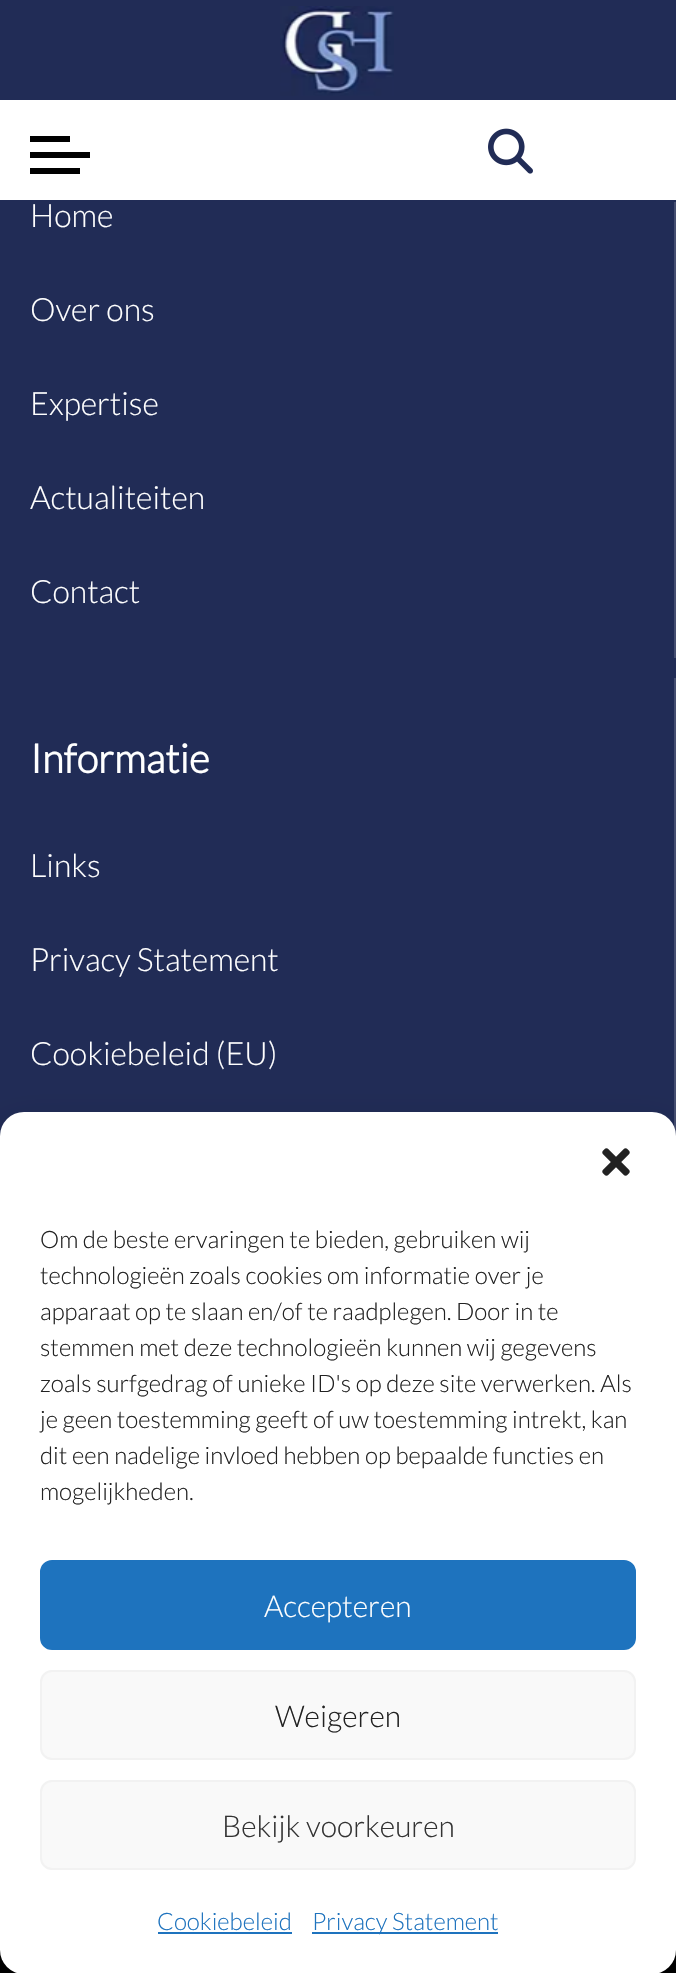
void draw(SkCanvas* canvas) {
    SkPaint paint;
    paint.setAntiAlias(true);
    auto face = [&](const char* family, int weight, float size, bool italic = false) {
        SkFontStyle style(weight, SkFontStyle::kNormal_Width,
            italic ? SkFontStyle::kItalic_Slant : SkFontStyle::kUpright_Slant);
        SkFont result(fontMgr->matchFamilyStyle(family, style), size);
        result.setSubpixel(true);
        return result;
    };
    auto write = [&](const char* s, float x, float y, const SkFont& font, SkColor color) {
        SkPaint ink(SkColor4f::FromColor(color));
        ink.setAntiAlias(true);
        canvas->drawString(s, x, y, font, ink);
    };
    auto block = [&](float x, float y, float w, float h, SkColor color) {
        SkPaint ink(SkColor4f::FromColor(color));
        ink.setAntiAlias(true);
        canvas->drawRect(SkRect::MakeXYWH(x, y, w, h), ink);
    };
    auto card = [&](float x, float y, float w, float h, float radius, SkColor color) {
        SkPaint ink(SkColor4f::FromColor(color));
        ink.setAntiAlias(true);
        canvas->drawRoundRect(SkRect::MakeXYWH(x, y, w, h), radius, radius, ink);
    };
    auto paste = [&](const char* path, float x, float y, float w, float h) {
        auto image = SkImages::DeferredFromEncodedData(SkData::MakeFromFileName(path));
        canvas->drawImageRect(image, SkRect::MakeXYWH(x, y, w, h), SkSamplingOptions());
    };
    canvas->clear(SkColorSetRGB(33, 44, 86));
    paste("pic1.png", 280, 6, 114, 90);
    block(0, 100, 676, 100, SK_ColorWHITE);
    block(30, 136, 40, 6, SK_ColorBLACK);
    block(30, 152, 60, 6, SK_ColorBLACK);
    block(30, 168, 50, 6, SK_ColorBLACK);
    paste("pic2.png", 488, 128, 45, 46);
    block(674, 202, 2, 456, SkColorSetRGB(69, 78, 113));
    auto kFont1 = face("Lato", 300, 32);
    write("Home", 30, 227, kFont1, SK_ColorWHITE);
    write("Over ons", 30, 321, kFont1, SK_ColorWHITE);
    write("Expertise", 30, 415, kFont1, SK_ColorWHITE);
    write("Actualiteiten", 30, 509, kFont1, SK_ColorWHITE);
    write("Contact", 30, 603, kFont1, SK_ColorWHITE);
    block(674, 678, 2, 458, SkColorSetRGB(69, 78, 113));
    auto kFont2 = face("Lato", 700, 40);
    write("Informatie", 30, 773, kFont2, SK_ColorWHITE);
    write("Links", 30, 877, kFont1, SK_ColorWHITE);
    write("Privacy Statement", 30, 971, kFont1, SK_ColorWHITE);
    write("Cookiebeleid (EU)", 30, 1065, kFont1, SK_ColorWHITE);
    block(0, 1950, 676, 23, SK_ColorBLACK);
    paint.setColor(SkColorSetARGB(59, 0, 0, 0));
    paint.setMaskFilter(SkMaskFilter::MakeBlur(kNormal_SkBlurStyle, 6));
    canvas->drawRoundRect(SkRect::MakeXYWH(0, 1124, 676, 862), 24, 24, paint);
    paint.setMaskFilter(nullptr);
    paint.setColor(SkColorSetARGB(48, 0, 0, 0));
    paint.setMaskFilter(SkMaskFilter::MakeBlur(kNormal_SkBlurStyle, 20));
    canvas->drawRoundRect(SkRect::MakeXYWH(0, 1132, 676, 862), 24, 24, paint);
    paint.setMaskFilter(nullptr);
    paint.setColor(SkColorSetRGB(128, 128, 128));
    paint.setMaskFilter(SkMaskFilter::MakeBlur(kNormal_SkBlurStyle, 5));
    canvas->drawRoundRect(SkRect::MakeXYWH(536, 1826, 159, 120), 4, 4, paint);
    paint.setMaskFilter(nullptr);
    card(0, 1112, 676, 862, 24, SK_ColorWHITE);
    paste("pic3.png", 602, 1148, 28, 28);
    auto kFont3 = face("Lato", 300, 24);
    write("Om de beste ervaringen te bieden, gebruiken wij", 40, 1248, kFont3, SkColorSetRGB(34, 34, 34));
    write("technologieën zoals cookies om informatie over je", 40, 1284, kFont3, SkColorSetRGB(34, 34, 34));
    write("apparaat op te slaan en/of te raadplegen. Door in te", 40, 1320, kFont3, SkColorSetRGB(34, 34, 34));
    write("stemmen met deze technologieën kunnen wij gegevens", 40, 1356, kFont3, SkColorSetRGB(34, 34, 34));
    write("zoals surfgedrag of unieke ID's op deze site verwerken. Als", 40, 1392, kFont3, SkColorSetRGB(34, 34, 34));
    write("je geen toestemming geeft of uw toestemming intrekt, kan", 40, 1428, kFont3, SkColorSetRGB(34, 34, 34));
    write("dit een nadelige invloed hebben op bepaalde functies en", 40, 1464, kFont3, SkColorSetRGB(34, 34, 34));
    write("mogelijkheden.", 40, 1500, kFont3, SkColorSetRGB(34, 34, 34));
    paint.setColor(SkColorSetRGB(30, 115, 190));
    canvas->drawRoundRect(SkRect::MakeXYWH(41, 1561, 594, 88), 11, 11, paint);
    paint.setStyle(SkPaint::kStroke_Style);
    paint.setStrokeWidth(2);
    canvas->drawRoundRect(SkRect::MakeXYWH(41, 1561, 594, 88), 11, 11, paint);
    auto kFont4 = face("Lato", 300, 30);
    write("Accepteren", 264, 1617, kFont4, SK_ColorWHITE);
    paint.setStyle(SkPaint::kFill_Style);
    paint.setColor(SkColorSetRGB(249, 249, 249));
    canvas->drawRoundRect(SkRect::MakeXYWH(41, 1671, 594, 88), 11, 11, paint);
    paint.setStyle(SkPaint::kStroke_Style);
    paint.setColor(SkColorSetRGB(242, 242, 242));
    canvas->drawRoundRect(SkRect::MakeXYWH(41, 1671, 594, 88), 11, 11, paint);
    write("Weigeren", 275, 1727, kFont4, SkColorSetRGB(34, 34, 34));
    paint.setStyle(SkPaint::kFill_Style);
    paint.setColor(SkColorSetRGB(249, 249, 249));
    canvas->drawRoundRect(SkRect::MakeXYWH(41, 1781, 594, 88), 11, 11, paint);
    paint.setStyle(SkPaint::kStroke_Style);
    paint.setColor(SkColorSetRGB(242, 242, 242));
    canvas->drawRoundRect(SkRect::MakeXYWH(41, 1781, 594, 88), 11, 11, paint);
    write("Bekijk voorkeuren", 222, 1837, kFont4, SkColorSetRGB(51, 51, 51));
    write("Cookiebeleid", 157, 1930, kFont3, SkColorSetRGB(30, 115, 190));
    block(158, 1932, 134, 2, SkColorSetRGB(30, 115, 190));
    block(312, 1932, 186, 2, SkColorSetRGB(30, 115, 190));
    write("Privacy Statement", 312, 1930, kFont3, SkColorSetRGB(30, 115, 190));
}
